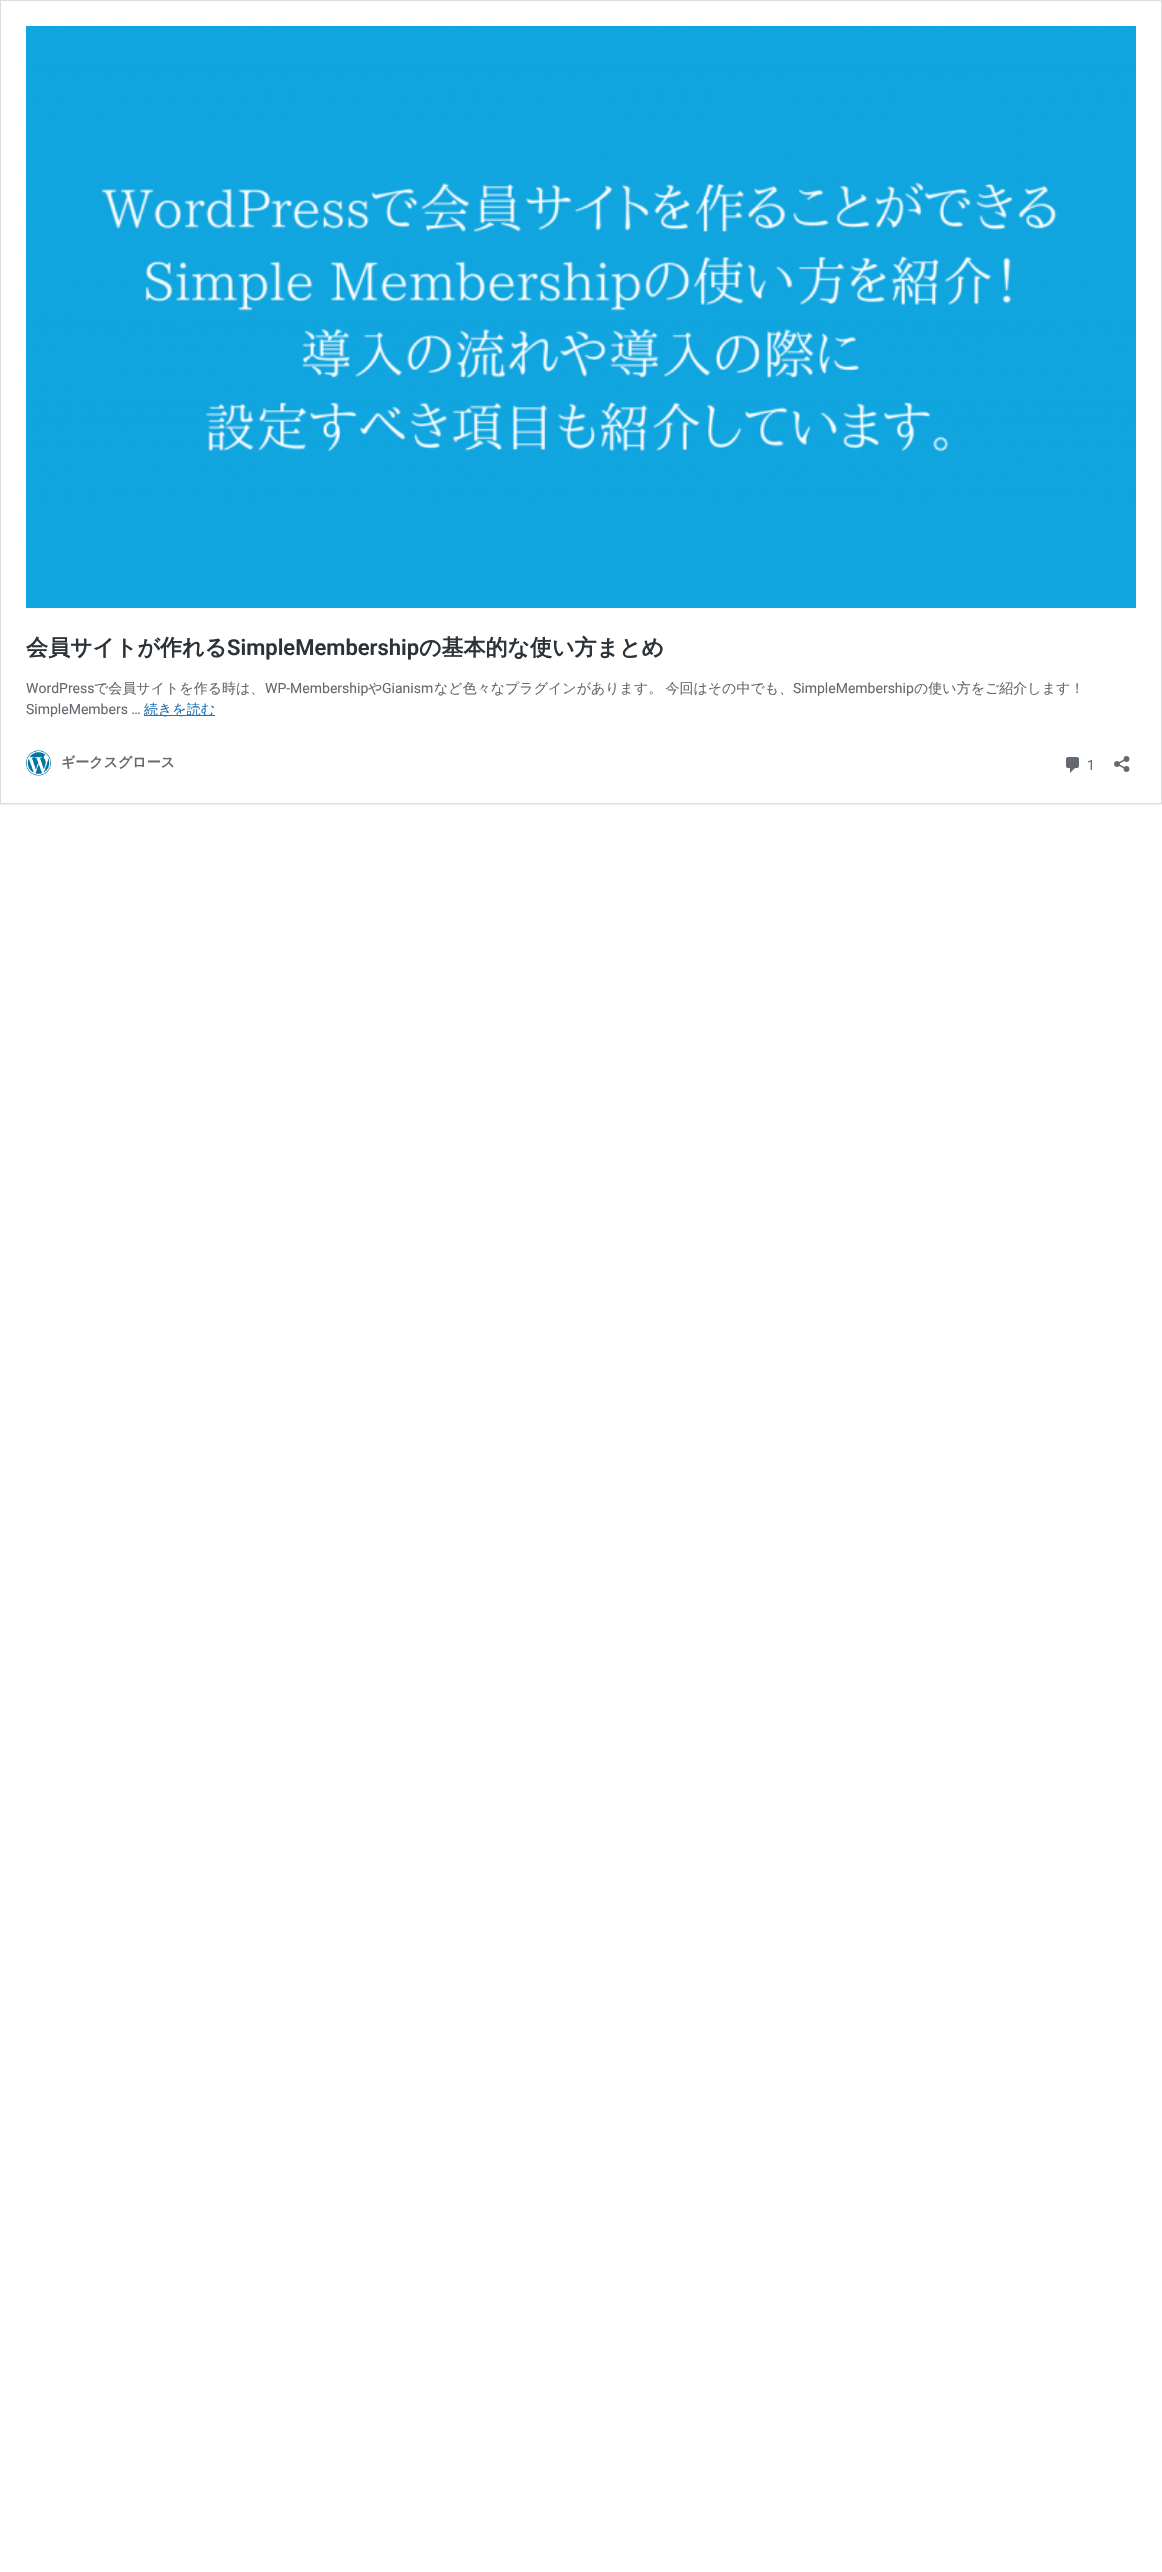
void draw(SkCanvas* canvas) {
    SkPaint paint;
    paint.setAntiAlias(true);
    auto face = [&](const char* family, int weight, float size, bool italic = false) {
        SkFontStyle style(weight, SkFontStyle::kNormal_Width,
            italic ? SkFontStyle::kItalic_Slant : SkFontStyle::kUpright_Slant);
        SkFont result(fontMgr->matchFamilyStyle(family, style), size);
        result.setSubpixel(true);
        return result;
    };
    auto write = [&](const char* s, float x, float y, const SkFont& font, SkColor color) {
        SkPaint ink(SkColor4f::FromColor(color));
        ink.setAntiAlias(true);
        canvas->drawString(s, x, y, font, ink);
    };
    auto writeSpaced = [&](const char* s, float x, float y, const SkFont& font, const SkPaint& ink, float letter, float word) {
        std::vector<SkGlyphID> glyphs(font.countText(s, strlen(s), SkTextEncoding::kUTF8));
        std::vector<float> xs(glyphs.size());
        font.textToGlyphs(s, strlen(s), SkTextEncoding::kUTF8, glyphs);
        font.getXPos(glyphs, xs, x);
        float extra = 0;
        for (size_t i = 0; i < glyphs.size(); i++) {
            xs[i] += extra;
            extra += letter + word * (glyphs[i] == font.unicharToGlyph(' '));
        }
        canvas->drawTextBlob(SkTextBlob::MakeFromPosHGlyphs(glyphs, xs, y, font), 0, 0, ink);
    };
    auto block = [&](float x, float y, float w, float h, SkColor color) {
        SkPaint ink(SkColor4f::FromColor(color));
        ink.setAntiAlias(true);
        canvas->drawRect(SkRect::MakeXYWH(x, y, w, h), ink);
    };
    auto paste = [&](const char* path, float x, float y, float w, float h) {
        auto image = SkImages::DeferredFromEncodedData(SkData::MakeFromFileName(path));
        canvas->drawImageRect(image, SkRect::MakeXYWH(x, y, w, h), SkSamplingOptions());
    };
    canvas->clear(SK_ColorWHITE);
    canvas->save();
    canvas->clipRect(SkRect::MakeXYWH(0, 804, 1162, 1));
    paint.setColor(SkColorSetARGB(13, 0, 0, 0));
    paint.setMaskFilter(SkMaskFilter::MakeBlur(kNormal_SkBlurStyle, 0.5f));
    canvas->drawRect(SkRect::MakeXYWH(0, 1, 1162, 804), paint);
    paint.setMaskFilter(nullptr);
    canvas->restore();
    paint.setStyle(SkPaint::kStroke_Style);
    paint.setStrokeWidth(1);
    paint.setColor(SkColorSetRGB(220, 220, 222));
    canvas->drawRect(SkRect::MakeXYWH(0.5f, 0.5f, 1161, 803), paint);
    paste("pic1.png", 26, 26, 1110, 582);
    auto kFont1 = face("WenQuanYi Zen Hei", 700, 22);
    write("会員サイトが作れる", 26, 655, kFont1, SkColorSetRGB(44, 51, 56));
    auto kFont2 = face("Roboto", 600, 22);
    write("SimpleMembership", 227, 655, kFont2, SkColorSetRGB(44, 51, 56));
    write("の基本的な使い方まとめ", 419, 655, kFont1, SkColorSetRGB(44, 51, 56));
    auto kFont3 = face("Roboto", 400, 14);
    write("WordPress", 26, 693, kFont3, SkColorSetRGB(100, 105, 112));
    auto kFont4 = face("WenQuanYi Zen Hei", 500, 14);
    write("で会員サイトを作る時は、", 94, 693, kFont4, SkColorSetRGB(100, 105, 112));
    write("WP-Membership", 265, 693, kFont3, SkColorSetRGB(100, 105, 112));
    write("や", 368, 693, kFont4, SkColorSetRGB(100, 105, 112));
    write("Gianism", 382, 693, kFont3, SkColorSetRGB(100, 105, 112));
    paint.setStyle(SkPaint::kFill_Style);
    paint.setColor(SkColorSetRGB(100, 105, 112));
    writeSpaced("など色々なプラグインがあります。 今回はその中でも、", 434, 693, kFont4, paint, 0, -1);
    write("SimpleMembership", 793, 693, kFont3, SkColorSetRGB(100, 105, 112));
    write("の使い方をご紹介します！", 914, 693, kFont4, SkColorSetRGB(100, 105, 112));
    write("SimpleMembers …", 26, 714, kFont3, SkColorSetRGB(100, 105, 112));
    block(144, 715, 71, 1, SkColorSetRGB(34, 113, 177));
    write("続きを読む", 144, 714, kFont4, SkColorSetRGB(34, 113, 177));
    paste("pic2.png", 26, 750, 25, 26);
    auto kFont5 = face("WenQuanYi Zen Hei", 700, 14);
    write("ギークスグロース", 61, 767, kFont5, SkColorSetRGB(100, 105, 112));
    paste("pic3.png", 1066, 757, 13, 16);
    write("1", 1087, 770, kFont3, SkColorSetRGB(100, 105, 112));
    paste("pic4.png", 1114, 756, 16, 16);
}
